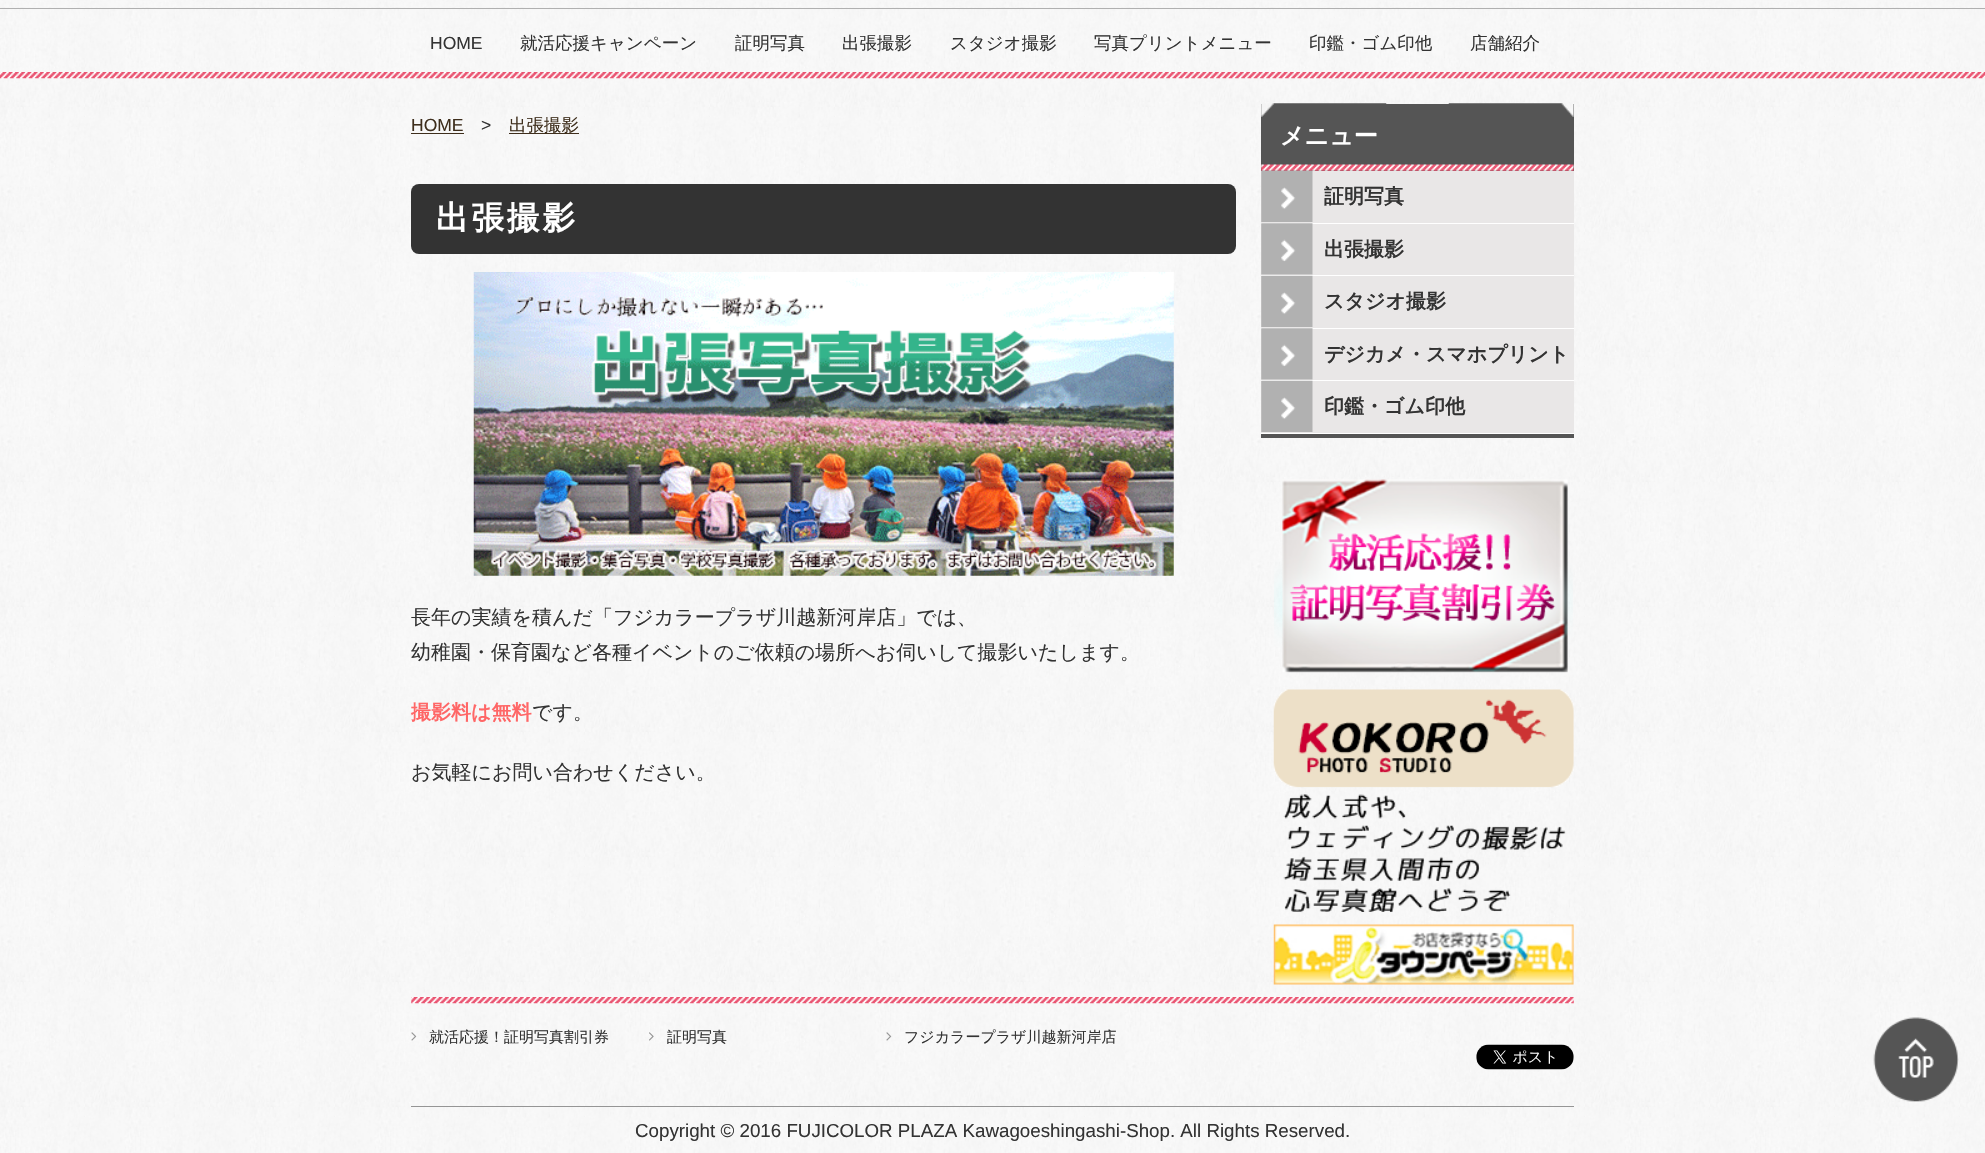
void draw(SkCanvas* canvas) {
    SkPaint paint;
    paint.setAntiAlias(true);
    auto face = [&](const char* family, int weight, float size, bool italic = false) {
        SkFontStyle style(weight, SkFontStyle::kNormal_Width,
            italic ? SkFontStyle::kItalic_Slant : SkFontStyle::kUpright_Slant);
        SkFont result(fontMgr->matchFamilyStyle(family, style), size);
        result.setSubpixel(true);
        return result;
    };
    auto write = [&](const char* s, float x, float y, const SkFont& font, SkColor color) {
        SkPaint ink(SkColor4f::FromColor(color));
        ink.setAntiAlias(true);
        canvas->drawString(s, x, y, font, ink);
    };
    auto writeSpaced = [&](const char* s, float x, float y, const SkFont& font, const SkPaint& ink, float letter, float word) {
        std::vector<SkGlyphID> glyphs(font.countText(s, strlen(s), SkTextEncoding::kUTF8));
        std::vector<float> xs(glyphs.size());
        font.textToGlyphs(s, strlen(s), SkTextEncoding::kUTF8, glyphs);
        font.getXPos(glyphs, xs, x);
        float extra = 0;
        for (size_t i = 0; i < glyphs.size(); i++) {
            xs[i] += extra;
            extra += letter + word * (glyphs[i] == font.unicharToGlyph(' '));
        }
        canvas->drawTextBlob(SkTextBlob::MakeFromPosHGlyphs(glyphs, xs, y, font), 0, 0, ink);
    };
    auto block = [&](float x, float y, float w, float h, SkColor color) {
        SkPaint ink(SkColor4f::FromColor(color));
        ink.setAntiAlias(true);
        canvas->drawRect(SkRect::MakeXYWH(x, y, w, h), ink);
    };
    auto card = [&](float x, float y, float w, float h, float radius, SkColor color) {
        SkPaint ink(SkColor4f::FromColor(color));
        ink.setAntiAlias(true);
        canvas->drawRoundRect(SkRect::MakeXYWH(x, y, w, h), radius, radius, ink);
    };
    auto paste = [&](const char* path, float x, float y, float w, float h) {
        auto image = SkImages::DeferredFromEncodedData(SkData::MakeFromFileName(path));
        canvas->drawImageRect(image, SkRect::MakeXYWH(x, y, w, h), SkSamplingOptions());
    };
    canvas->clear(SK_ColorWHITE);
    paste("pic1.png", 0, 0, 1985, 1153);
    paste("pic2.png", 0, 7, 1985, 72);
    block(0, 8, 1985, 1, SkColorSetRGB(176, 176, 176));
    auto kFont1 = face("Liberation Sans", 400, 17.5f);
    write("HOME", 430, 49, kFont1, SkColorSetRGB(51, 51, 51));
    auto kFont2 = face("WenQuanYi Zen Hei", 500, 17.5f);
    write("就活応援キャンペーン", 520, 49, kFont2, SkColorSetRGB(51, 51, 51));
    write("証明写真", 735, 49, kFont2, SkColorSetRGB(51, 51, 51));
    write("出張撮影", 842, 49, kFont2, SkColorSetRGB(51, 51, 51));
    write("スタジオ撮影", 950, 49, kFont2, SkColorSetRGB(51, 51, 51));
    write("写真プリントメニュー", 1094, 49, kFont2, SkColorSetRGB(51, 51, 51));
    write("印鑑・ゴム印他", 1309, 49, kFont2, SkColorSetRGB(51, 51, 51));
    write("店舗紹介", 1470, 49, kFont2, SkColorSetRGB(51, 51, 51));
    write("HOME", 411, 131, kFont1, SkColorSetRGB(62, 46, 28));
    block(411, 133, 53, 1, SkColorSetRGB(62, 46, 28));
    write(">", 481, 131, kFont1, SkColorSetRGB(51, 51, 51));
    block(509, 133, 70, 1, SkColorSetRGB(62, 46, 28));
    write("出張撮影", 509, 131, kFont2, SkColorSetRGB(62, 46, 28));
    card(411, 184, 825, 70, 8, SkColorSetRGB(51, 51, 51));
    auto kFont3 = face("WenQuanYi Zen Hei", 700, 32.5f);
    paint.setColor(SK_ColorWHITE);
    writeSpaced("出張撮影", 436, 229, kFont3, paint, 3, 0);
    paste("pic3.png", 473, 272, 701, 304);
    auto kFont4 = face("WenQuanYi Zen Hei", 500, 20);
    write("長年の実績を積んだ「フジカラープラザ川越新河岸店」では、", 411, 624, kFont4, SkColorSetRGB(51, 51, 51));
    write("幼稚園・保育園など各種イベントのご依頼の場所へお伺いして撮影いたします。", 411, 659, kFont4, SkColorSetRGB(51, 51, 51));
    auto kFont5 = face("WenQuanYi Zen Hei", 700, 20);
    write("撮影料は無料", 411, 719, kFont5, SkColorSetRGB(255, 102, 102));
    write("です。", 532, 719, kFont4, SkColorSetRGB(51, 51, 51));
    write("お気軽にお問い合わせください。", 411, 779, kFont4, SkColorSetRGB(51, 51, 51));
    block(1261, 104, 313, 67, SkColorSetRGB(85, 85, 85));
    paste("pic4.png", 1261, 103, 313, 68);
    auto kFont6 = face("WenQuanYi Zen Hei", 700, 24);
    write("メニュー", 1280, 144, kFont6, SK_ColorWHITE);
    block(1261, 434, 313, 4, SkColorSetRGB(85, 85, 85));
    block(1261, 171, 313, 52, SkColorSetRGB(233, 231, 231));
    block(1261, 223, 313, 1, SK_ColorWHITE);
    paste("pic5.png", 1261, 170, 52, 52);
    write("証明写真", 1324, 203, kFont5, SkColorSetRGB(51, 51, 51));
    block(1261, 224, 313, 51, SkColorSetRGB(233, 231, 231));
    block(1261, 275, 313, 1, SK_ColorWHITE);
    paste("pic6.png", 1261, 223, 52, 52);
    write("出張撮影", 1324, 256, kFont5, SkColorSetRGB(51, 51, 51));
    block(1261, 276, 313, 52, SkColorSetRGB(233, 231, 231));
    block(1261, 328, 313, 1, SK_ColorWHITE);
    paste("pic7.png", 1261, 275, 52, 52);
    write("スタジオ撮影", 1324, 308, kFont5, SkColorSetRGB(51, 51, 51));
    block(1261, 329, 313, 51, SkColorSetRGB(233, 231, 231));
    block(1261, 380, 313, 1, SK_ColorWHITE);
    paste("pic6.png", 1261, 328, 52, 52);
    write("デジカメ・スマホプリント", 1324, 361, kFont5, SkColorSetRGB(51, 51, 51));
    block(1261, 381, 313, 52, SkColorSetRGB(233, 231, 231));
    block(1261, 433, 313, 1, SK_ColorWHITE);
    paste("pic7.png", 1261, 380, 52, 52);
    write("印鑑・ゴム印他", 1324, 413, kFont5, SkColorSetRGB(51, 51, 51));
    paste("pic8.png", 1274, 479, 299, 194);
    paste("pic9.png", 1273, 689, 301, 223);
    paste("pic10.png", 1273, 924, 301, 61);
    paste("pic11.png", 411, 997, 1163, 7);
    paste("pic12.png", 411, 1032, 6, 9);
    auto kFont7 = face("WenQuanYi Zen Hei", 500, 15);
    write("就活応援！証明写真割引券", 429, 1042, kFont7, SkColorSetRGB(51, 51, 51));
    paste("pic13.png", 649, 1032, 5, 9);
    write("証明写真", 667, 1042, kFont7, SkColorSetRGB(51, 51, 51));
    paste("pic14.png", 886, 1032, 6, 9);
    write("フジカラープラザ川越新河岸店", 904, 1042, kFont7, SkColorSetRGB(51, 51, 51));
    paste("pic15.png", 1476, 1044, 98, 26);
    block(411, 1106, 1163, 1, SkColorSetRGB(149, 149, 149));
    auto kFont8 = face("Liberation Sans", 400, 18.75f);
    write("Copyright © 2016 FUJICOLOR PLAZA Kawagoeshingashi-Shop. All Rights Reserved.", 635, 1137, kFont8, SkColorSetRGB(51, 51, 51));
    paste("pic16.png", 1873, 1017, 86, 85);
}
